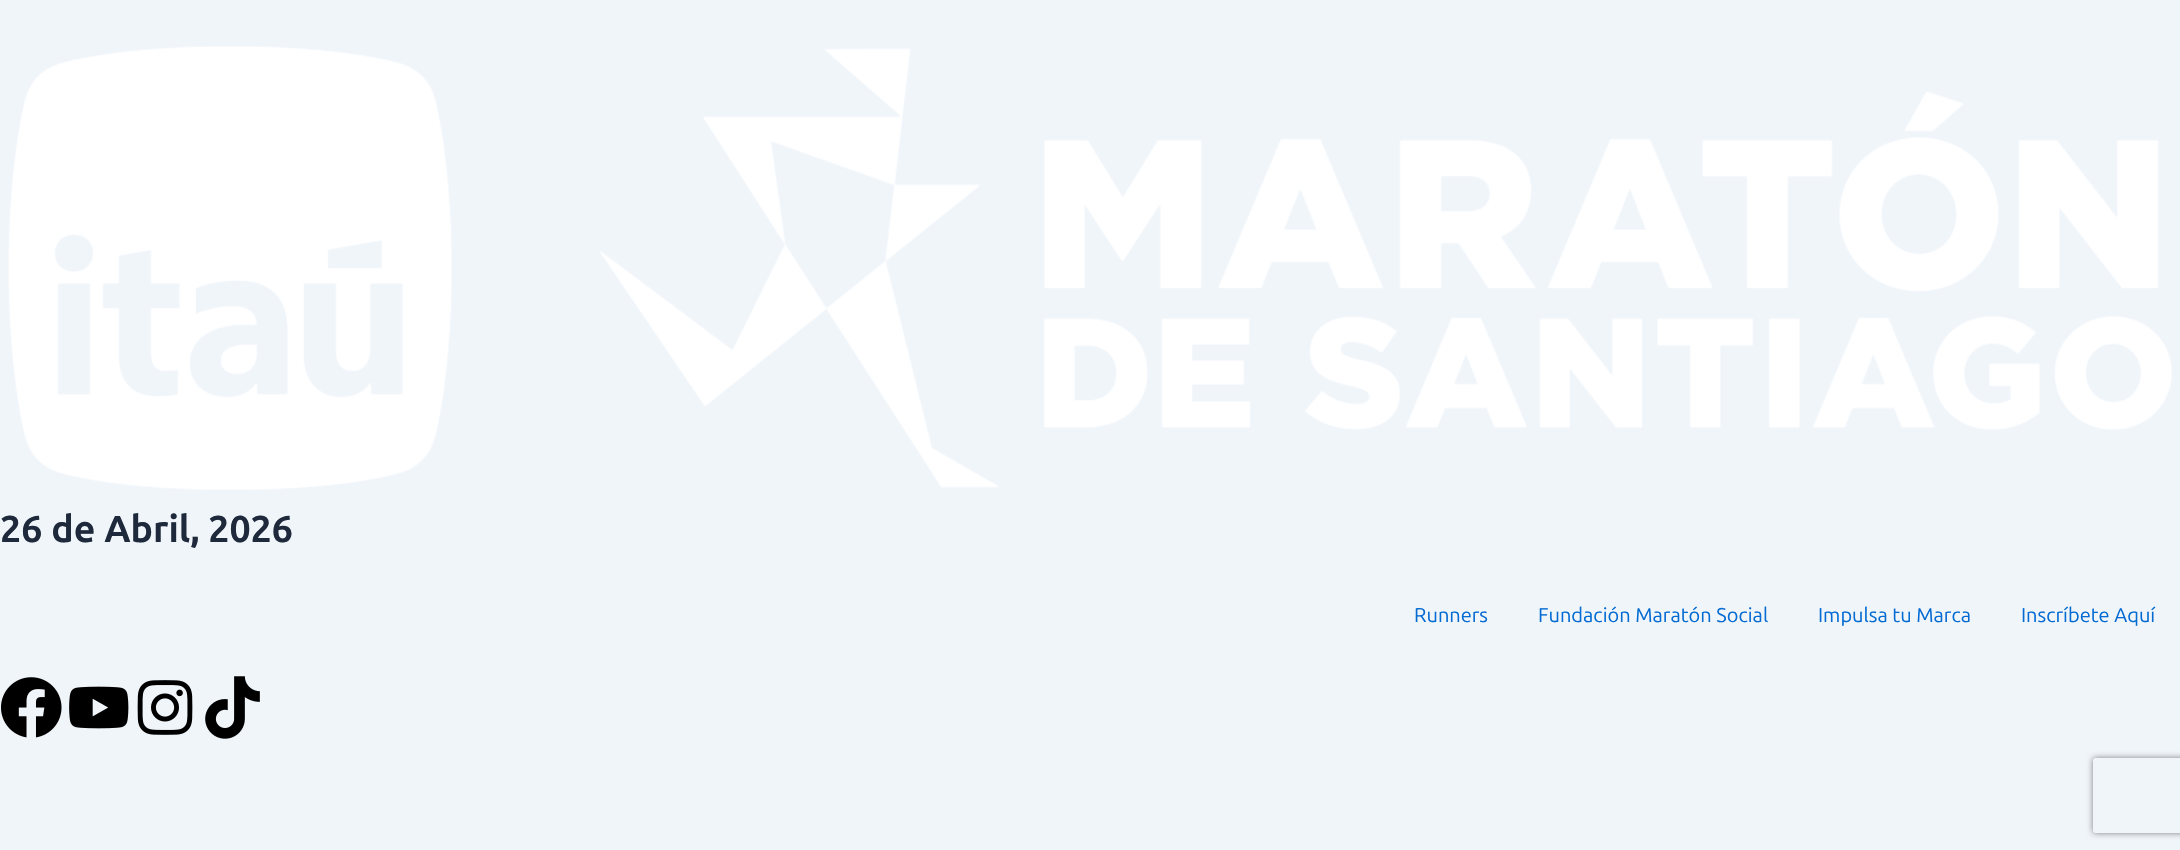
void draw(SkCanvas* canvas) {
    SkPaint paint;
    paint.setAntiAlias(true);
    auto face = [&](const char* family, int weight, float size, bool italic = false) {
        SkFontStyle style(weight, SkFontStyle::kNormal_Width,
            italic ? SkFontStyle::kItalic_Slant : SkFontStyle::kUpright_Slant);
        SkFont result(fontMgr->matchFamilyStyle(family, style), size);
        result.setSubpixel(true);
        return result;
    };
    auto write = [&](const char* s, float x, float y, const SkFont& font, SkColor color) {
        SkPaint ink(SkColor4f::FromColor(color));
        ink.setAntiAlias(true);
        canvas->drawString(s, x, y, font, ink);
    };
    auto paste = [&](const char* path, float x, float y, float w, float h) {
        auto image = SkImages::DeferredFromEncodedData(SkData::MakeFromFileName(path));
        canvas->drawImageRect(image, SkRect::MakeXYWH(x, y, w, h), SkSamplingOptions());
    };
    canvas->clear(SkColorSetRGB(240, 245, 250));
    paste("pic1.png", 8, 46, 2164, 444);
    auto kFont1 = face("Ubuntu", 700, 37.5f);
    write("26 de Abril, 2026", 0, 542, kFont1, SkColorSetRGB(30, 41, 59));
    auto kFont2 = face("Ubuntu", 400, 20);
    write("Runners", 1414, 622, kFont2, SkColorSetRGB(4, 107, 210));
    write("Fundación Maratón Social", 1538, 622, kFont2, SkColorSetRGB(4, 107, 210));
    write("Impulsa tu Marca", 1818, 622, kFont2, SkColorSetRGB(4, 107, 210));
    write("Inscríbete Aquí", 2021, 622, kFont2, SkColorSetRGB(4, 107, 210));
    paste("pic2.png", 1, 677, 61, 61);
    paste("pic3.png", 69, 686, 60, 43);
    paste("pic4.png", 137, 680, 56, 55);
    paste("pic5.png", 205, 676, 55, 63);
    canvas->save();
    canvas->clipPath(SkPathBuilder(SkPathFillType::kEvenOdd).moveTo(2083, 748).lineTo(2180, 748).lineTo(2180, 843).lineTo(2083, 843).close().moveTo(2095.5f, 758).lineTo(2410.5f, 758).cubicTo(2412, 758, 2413, 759, 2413, 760.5f).lineTo(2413, 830.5f).cubicTo(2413, 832, 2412, 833, 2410.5f, 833).lineTo(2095.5f, 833).cubicTo(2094, 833, 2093, 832, 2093, 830.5f).lineTo(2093, 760.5f).cubicTo(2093, 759, 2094, 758, 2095.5f, 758).close().detach(), true);
    paint.setColor(SkColorSetRGB(128, 128, 128));
    paint.setMaskFilter(SkMaskFilter::MakeBlur(kNormal_SkBlurStyle, 3));
    canvas->drawRoundRect(SkRect::MakeXYWH(2093, 758, 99, 75), 2.5f, 2.5f, paint);
    paint.setMaskFilter(nullptr);
    canvas->restore();
}
